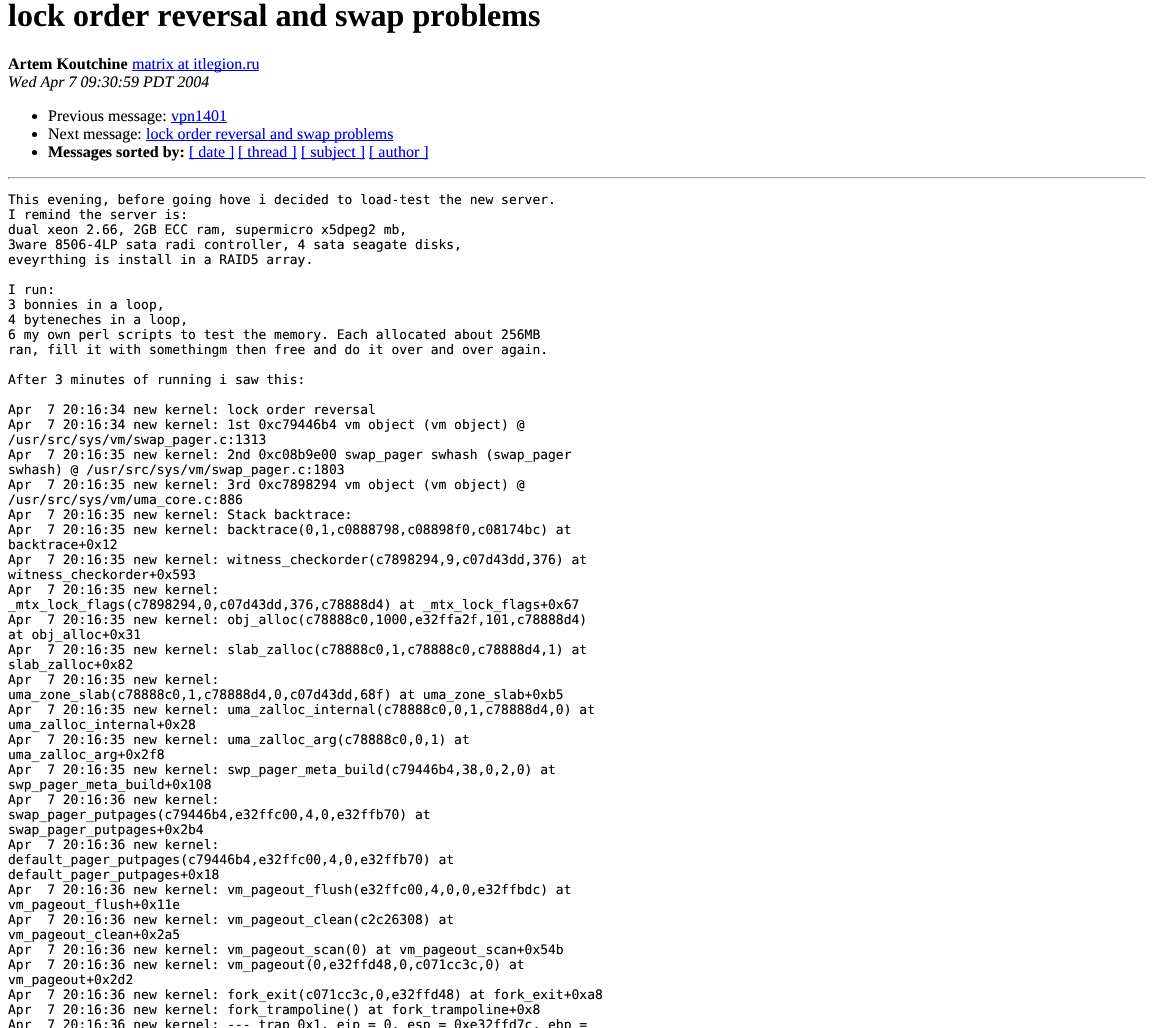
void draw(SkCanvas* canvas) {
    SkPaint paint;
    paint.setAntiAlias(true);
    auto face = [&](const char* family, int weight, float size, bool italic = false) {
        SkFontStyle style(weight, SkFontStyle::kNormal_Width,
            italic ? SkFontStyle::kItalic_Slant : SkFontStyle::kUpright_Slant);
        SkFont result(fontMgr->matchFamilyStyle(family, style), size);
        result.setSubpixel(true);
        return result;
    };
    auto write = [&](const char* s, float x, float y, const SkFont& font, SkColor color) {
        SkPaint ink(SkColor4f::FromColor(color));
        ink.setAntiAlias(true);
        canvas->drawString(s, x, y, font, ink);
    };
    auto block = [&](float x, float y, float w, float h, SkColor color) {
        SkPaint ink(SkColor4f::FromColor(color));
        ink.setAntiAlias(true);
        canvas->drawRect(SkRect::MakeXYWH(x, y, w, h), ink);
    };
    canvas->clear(SK_ColorWHITE);
    auto kFont1 = face("Liberation Serif", 700, 32);
    write("lock order reversal and swap problems", 8, 26, kFont1, SK_ColorBLACK);
    auto kFont2 = face("Liberation Serif", 700, 16);
    write("Artem Koutchine", 8, 69, kFont2, SK_ColorBLACK);
    block(132, 70, 127, 1, SkColorSetRGB(0, 0, 238));
    auto kFont3 = face("Liberation Serif", 400, 16);
    write("matrix at itlegion.ru", 132, 69, kFont3, SkColorSetRGB(0, 0, 238));
    auto kFont4 = face("Liberation Serif", 400, 16, true);
    write("Wed Apr 7 09:30:59 PDT 2004", 8, 87, kFont4, SK_ColorBLACK);
    paint.setColor(SK_ColorBLACK);
    canvas->drawCircle(34.5f, 116.5f, 2.5f, paint);
    write("Previous message:", 48, 121, kFont3, SK_ColorBLACK);
    block(171, 122, 56, 1, SkColorSetRGB(0, 0, 238));
    write("vpn1401", 171, 121, kFont3, SkColorSetRGB(0, 0, 238));
    canvas->drawCircle(34.5f, 134.5f, 2.5f, paint);
    write("Next message:", 48, 139, kFont3, SK_ColorBLACK);
    block(146, 140, 247, 1, SkColorSetRGB(0, 0, 238));
    write("lock order reversal and swap problems", 146, 139, kFont3, SkColorSetRGB(0, 0, 238));
    canvas->drawCircle(34.5f, 152.5f, 2.5f, paint);
    write("Messages sorted by:", 48, 157, kFont2, SK_ColorBLACK);
    block(189, 158, 45, 1, SkColorSetRGB(0, 0, 238));
    write("[ date ]", 189, 157, kFont3, SkColorSetRGB(0, 0, 238));
    block(238, 158, 59, 1, SkColorSetRGB(0, 0, 238));
    write("[ thread ]", 238, 157, kFont3, SkColorSetRGB(0, 0, 238));
    block(301, 158, 64, 1, SkColorSetRGB(0, 0, 238));
    write("[ subject ]", 301, 157, kFont3, SkColorSetRGB(0, 0, 238));
    block(369, 158, 59, 1, SkColorSetRGB(0, 0, 238));
    write("[ author ]", 369, 157, kFont3, SkColorSetRGB(0, 0, 238));
    block(8, 177, 1138, 1, SkColorSetRGB(159, 159, 159));
    block(1145, 177, 1, 2, SkColorSetRGB(238, 238, 238));
    block(8, 178, 1138, 1, SkColorSetRGB(238, 238, 238));
    block(8, 177, 1, 2, SkColorSetRGB(159, 159, 159));
    auto kFont5 = face("DejaVu Sans Mono", 400, 13);
    write("This evening, before going hove i decided to load-test the new server.", 8, 204, kFont5, SK_ColorBLACK);
    write("I remind the server is:", 8, 219, kFont5, SK_ColorBLACK);
    write("dual xeon 2.66, 2GB ECC ram, supermicro x5dpeg2 mb,", 8, 234, kFont5, SK_ColorBLACK);
    write("3ware 8506-4LP sata radi controller, 4 sata seagate disks,", 8, 249, kFont5, SK_ColorBLACK);
    write("eveyrthing is install in a RAID5 array.", 8, 264, kFont5, SK_ColorBLACK);
    write("I run:", 8, 294, kFont5, SK_ColorBLACK);
    write("3 bonnies in a loop,", 8, 309, kFont5, SK_ColorBLACK);
    write("4 byteneches in a loop,", 8, 324, kFont5, SK_ColorBLACK);
    write("6 my own perl scripts to test the memory. Each allocated about 256MB", 8, 339, kFont5, SK_ColorBLACK);
    write("ran, fill it with somethingm then free and do it over and over again.", 8, 354, kFont5, SK_ColorBLACK);
    write("After 3 minutes of running i saw this:", 8, 384, kFont5, SK_ColorBLACK);
    write("Apr  7 20:16:34 new kernel: lock order reversal", 8, 414, kFont5, SK_ColorBLACK);
    write("Apr  7 20:16:34 new kernel: 1st 0xc79446b4 vm object (vm object) @", 8, 429, kFont5, SK_ColorBLACK);
    write("/usr/src/sys/vm/swap_pager.c:1313", 8, 444, kFont5, SK_ColorBLACK);
    write("Apr  7 20:16:35 new kernel: 2nd 0xc08b9e00 swap_pager swhash (swap_pager", 8, 459, kFont5, SK_ColorBLACK);
    write("swhash) @ /usr/src/sys/vm/swap_pager.c:1803", 8, 474, kFont5, SK_ColorBLACK);
    write("Apr  7 20:16:35 new kernel: 3rd 0xc7898294 vm object (vm object) @", 8, 489, kFont5, SK_ColorBLACK);
    write("/usr/src/sys/vm/uma_core.c:886", 8, 504, kFont5, SK_ColorBLACK);
    write("Apr  7 20:16:35 new kernel: Stack backtrace:", 8, 519, kFont5, SK_ColorBLACK);
    write("Apr  7 20:16:35 new kernel: backtrace(0,1,c0888798,c08898f0,c08174bc) at", 8, 534, kFont5, SK_ColorBLACK);
    write("backtrace+0x12", 8, 549, kFont5, SK_ColorBLACK);
    write("Apr  7 20:16:35 new kernel: witness_checkorder(c7898294,9,c07d43dd,376) at", 8, 564, kFont5, SK_ColorBLACK);
    write("witness_checkorder+0x593", 8, 579, kFont5, SK_ColorBLACK);
    write("Apr  7 20:16:35 new kernel:", 8, 594, kFont5, SK_ColorBLACK);
    write("_mtx_lock_flags(c7898294,0,c07d43dd,376,c78888d4) at _mtx_lock_flags+0x67", 8, 609, kFont5, SK_ColorBLACK);
    write("Apr  7 20:16:35 new kernel: obj_alloc(c78888c0,1000,e32ffa2f,101,c78888d4)", 8, 624, kFont5, SK_ColorBLACK);
    write("at obj_alloc+0x31", 8, 639, kFont5, SK_ColorBLACK);
    write("Apr  7 20:16:35 new kernel: slab_zalloc(c78888c0,1,c78888c0,c78888d4,1) at", 8, 654, kFont5, SK_ColorBLACK);
    write("slab_zalloc+0x82", 8, 669, kFont5, SK_ColorBLACK);
    write("Apr  7 20:16:35 new kernel:", 8, 684, kFont5, SK_ColorBLACK);
    write("uma_zone_slab(c78888c0,1,c78888d4,0,c07d43dd,68f) at uma_zone_slab+0xb5", 8, 699, kFont5, SK_ColorBLACK);
    write("Apr  7 20:16:35 new kernel: uma_zalloc_internal(c78888c0,0,1,c78888d4,0) at", 8, 714, kFont5, SK_ColorBLACK);
    write("uma_zalloc_internal+0x28", 8, 729, kFont5, SK_ColorBLACK);
    write("Apr  7 20:16:35 new kernel: uma_zalloc_arg(c78888c0,0,1) at", 8, 744, kFont5, SK_ColorBLACK);
    write("uma_zalloc_arg+0x2f8", 8, 759, kFont5, SK_ColorBLACK);
    write("Apr  7 20:16:35 new kernel: swp_pager_meta_build(c79446b4,38,0,2,0) at", 8, 774, kFont5, SK_ColorBLACK);
    write("swp_pager_meta_build+0x108", 8, 789, kFont5, SK_ColorBLACK);
    write("Apr  7 20:16:36 new kernel:", 8, 804, kFont5, SK_ColorBLACK);
    write("swap_pager_putpages(c79446b4,e32ffc00,4,0,e32ffb70) at", 8, 819, kFont5, SK_ColorBLACK);
    write("swap_pager_putpages+0x2b4", 8, 834, kFont5, SK_ColorBLACK);
    write("Apr  7 20:16:36 new kernel:", 8, 849, kFont5, SK_ColorBLACK);
    write("default_pager_putpages(c79446b4,e32ffc00,4,0,e32ffb70) at", 8, 864, kFont5, SK_ColorBLACK);
    write("default_pager_putpages+0x18", 8, 879, kFont5, SK_ColorBLACK);
    write("Apr  7 20:16:36 new kernel: vm_pageout_flush(e32ffc00,4,0,0,e32ffbdc) at", 8, 894, kFont5, SK_ColorBLACK);
    write("vm_pageout_flush+0x11e", 8, 909, kFont5, SK_ColorBLACK);
    write("Apr  7 20:16:36 new kernel: vm_pageout_clean(c2c26308) at", 8, 924, kFont5, SK_ColorBLACK);
    write("vm_pageout_clean+0x2a5", 8, 939, kFont5, SK_ColorBLACK);
    write("Apr  7 20:16:36 new kernel: vm_pageout_scan(0) at vm_pageout_scan+0x54b", 8, 954, kFont5, SK_ColorBLACK);
    write("Apr  7 20:16:36 new kernel: vm_pageout(0,e32ffd48,0,c071cc3c,0) at", 8, 969, kFont5, SK_ColorBLACK);
    write("vm_pageout+0x2d2", 8, 984, kFont5, SK_ColorBLACK);
    write("Apr  7 20:16:36 new kernel: fork_exit(c071cc3c,0,e32ffd48) at fork_exit+0xa8", 8, 999, kFont5, SK_ColorBLACK);
    write("Apr  7 20:16:36 new kernel: fork_trampoline() at fork_trampoline+0x8", 8, 1014, kFont5, SK_ColorBLACK);
    write("Apr  7 20:16:36 new kernel: --- trap 0x1, eip = 0, esp = 0xe32ffd7c, ebp =", 8, 1029, kFont5, SK_ColorBLACK);
}
